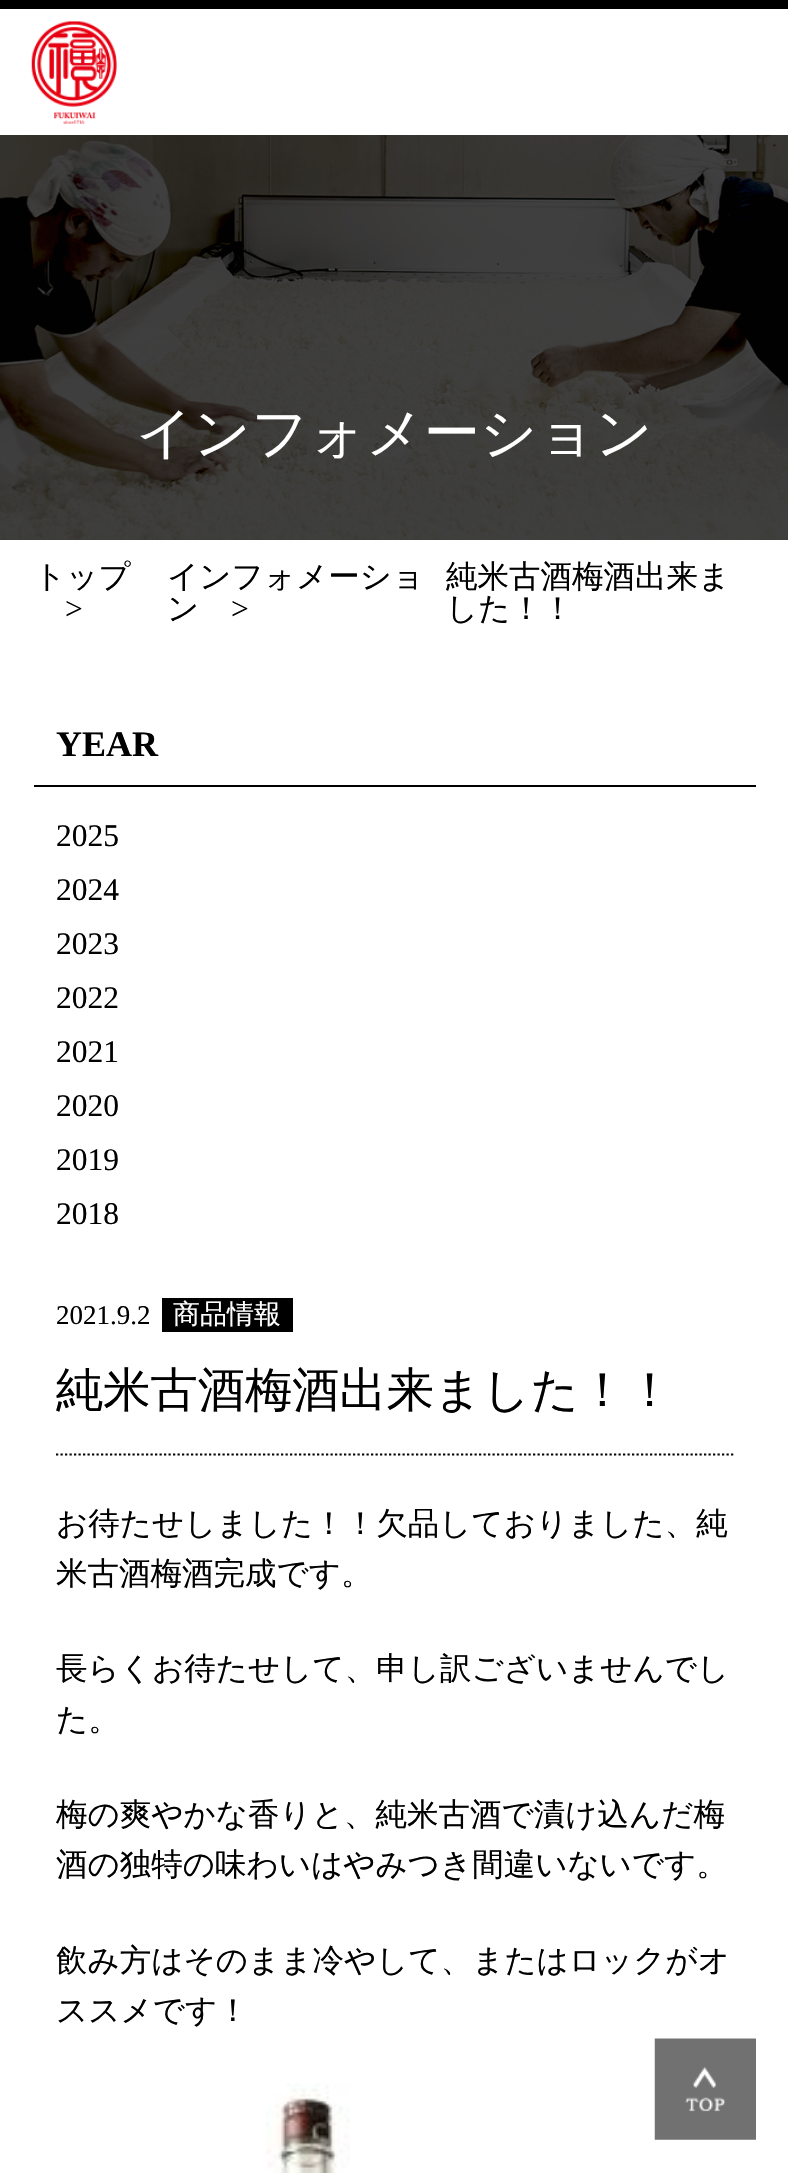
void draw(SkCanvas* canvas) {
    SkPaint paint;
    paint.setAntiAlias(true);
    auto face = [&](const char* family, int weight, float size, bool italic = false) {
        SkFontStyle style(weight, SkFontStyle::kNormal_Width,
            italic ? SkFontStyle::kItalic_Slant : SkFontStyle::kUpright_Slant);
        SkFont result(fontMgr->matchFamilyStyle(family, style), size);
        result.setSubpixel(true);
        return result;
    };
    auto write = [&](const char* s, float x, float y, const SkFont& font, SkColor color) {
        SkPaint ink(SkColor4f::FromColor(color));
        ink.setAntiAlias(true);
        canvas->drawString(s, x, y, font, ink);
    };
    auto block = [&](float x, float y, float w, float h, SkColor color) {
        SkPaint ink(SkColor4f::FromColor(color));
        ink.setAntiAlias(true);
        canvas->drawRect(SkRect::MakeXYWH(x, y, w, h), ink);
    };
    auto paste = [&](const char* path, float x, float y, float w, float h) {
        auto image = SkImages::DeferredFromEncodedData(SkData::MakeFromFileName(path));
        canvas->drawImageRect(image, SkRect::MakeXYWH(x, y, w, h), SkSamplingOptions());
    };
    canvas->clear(SK_ColorWHITE);
    block(0, 0, 788, 9, SK_ColorBLACK);
    paste("pic1.png", 31, 21, 86, 103);
    paste("pic2.png", 0, 135, 788, 405);
    auto kFont1 = face("WenQuanYi Zen Hei", 500, 56.25f);
    write("インフォメーション", 136, 452, kFont1, SK_ColorWHITE);
    auto kFont2 = face("WenQuanYi Zen Hei", 500, 31.5f);
    write("トップ", 34, 587, kFont2, SK_ColorBLACK);
    auto kFont3 = face("Liberation Serif", 400, 31.5f);
    write(">", 65, 619, kFont3, SK_ColorBLACK);
    write("インフォメーショ", 167, 587, kFont2, SK_ColorBLACK);
    write("ン", 167, 619, kFont2, SK_ColorBLACK);
    write(">", 231, 619, kFont3, SK_ColorBLACK);
    write("純米古酒梅酒出来ま", 446, 587, kFont2, SK_ColorBLACK);
    write("した！！", 446, 619, kFont2, SK_ColorBLACK);
    block(34, 785, 722, 2, SK_ColorBLACK);
    auto kFont4 = face("Liberation Serif", 700, 36);
    write("YEAR", 56, 756, kFont4, SK_ColorBLACK);
    write("2025", 56, 846, kFont3, SK_ColorBLACK);
    write("2024", 56, 900, kFont3, SK_ColorBLACK);
    write("2023", 56, 954, kFont3, SK_ColorBLACK);
    write("2022", 56, 1008, kFont3, SK_ColorBLACK);
    write("2021", 56, 1062, kFont3, SK_ColorBLACK);
    write("2020", 56, 1116, kFont3, SK_ColorBLACK);
    write("2019", 56, 1170, kFont3, SK_ColorBLACK);
    write("2018", 56, 1224, kFont3, SK_ColorBLACK);
    auto kFont5 = face("Liberation Serif", 400, 27);
    write("2021.9.2", 56, 1324, kFont5, SK_ColorBLACK);
    block(162, 1298, 131, 34, SK_ColorBLACK);
    auto kFont6 = face("WenQuanYi Zen Hei", 500, 27);
    write("商品情報", 173, 1323, kFont6, SK_ColorWHITE);
    paint.setStyle(SkPaint::kStroke_Style);
    paint.setStrokeWidth(2.2f);
    paint.setColor(SK_ColorBLACK);
    paint.setPathEffect(SkDashPathEffect::Make({{2.25f, 2.25f}}, 0));
    canvas->drawPath(SkPathBuilder().moveTo(56, 1454.5f).lineTo(733.5f, 1454.5f).detach(), paint);
    paint.setPathEffect(nullptr);
    auto kFont7 = face("WenQuanYi Zen Hei", 500, 47.25f);
    write("純米古酒梅酒出来ました！！", 56, 1406, kFont7, SK_ColorBLACK);
    write("お待たせしました！！欠品しておりました、純", 56, 1534, kFont2, SK_ColorBLACK);
    write("米古酒梅酒完成です。", 56, 1584, kFont2, SK_ColorBLACK);
    write("長らくお待たせして、申し訳ございませんでし", 56, 1679, kFont2, SK_ColorBLACK);
    write("た。", 56, 1730, kFont2, SK_ColorBLACK);
    write("梅の爽やかな香りと、純米古酒で漬け込んだ梅", 56, 1825, kFont2, SK_ColorBLACK);
    write("酒の独特の味わいはやみつき間違いないです。", 56, 1875, kFont2, SK_ColorBLACK);
    write("飲み方はそのまま冷やして、またはロックがオ", 56, 1971, kFont2, SK_ColorBLACK);
    write("ススメです！", 56, 2021, kFont2, SK_ColorBLACK);
    paste("pic3.png", 265, 2083, 85, 90);
    paste("pic4.png", 654, 2038, 102, 102);
}
